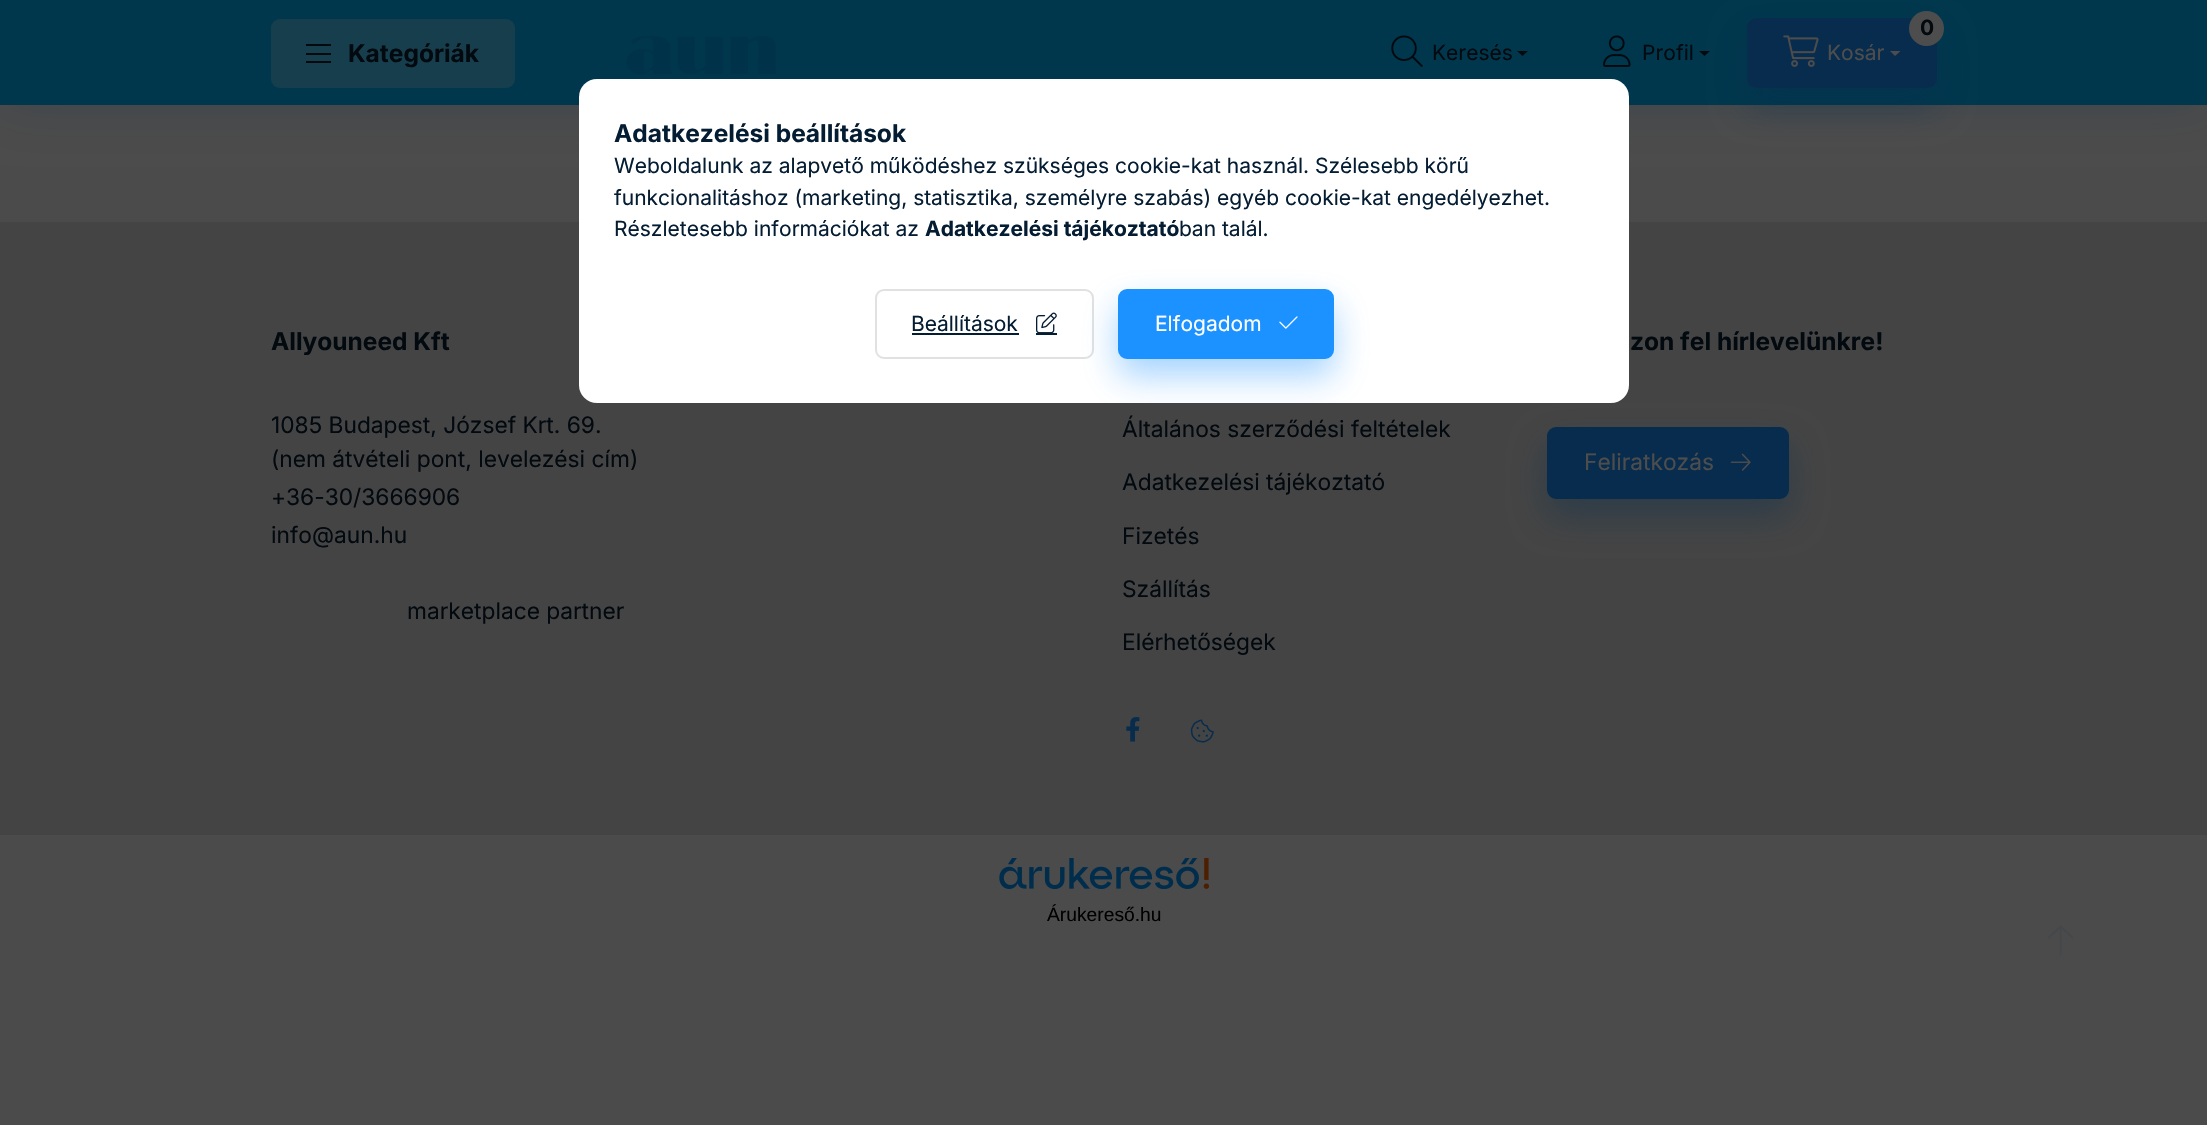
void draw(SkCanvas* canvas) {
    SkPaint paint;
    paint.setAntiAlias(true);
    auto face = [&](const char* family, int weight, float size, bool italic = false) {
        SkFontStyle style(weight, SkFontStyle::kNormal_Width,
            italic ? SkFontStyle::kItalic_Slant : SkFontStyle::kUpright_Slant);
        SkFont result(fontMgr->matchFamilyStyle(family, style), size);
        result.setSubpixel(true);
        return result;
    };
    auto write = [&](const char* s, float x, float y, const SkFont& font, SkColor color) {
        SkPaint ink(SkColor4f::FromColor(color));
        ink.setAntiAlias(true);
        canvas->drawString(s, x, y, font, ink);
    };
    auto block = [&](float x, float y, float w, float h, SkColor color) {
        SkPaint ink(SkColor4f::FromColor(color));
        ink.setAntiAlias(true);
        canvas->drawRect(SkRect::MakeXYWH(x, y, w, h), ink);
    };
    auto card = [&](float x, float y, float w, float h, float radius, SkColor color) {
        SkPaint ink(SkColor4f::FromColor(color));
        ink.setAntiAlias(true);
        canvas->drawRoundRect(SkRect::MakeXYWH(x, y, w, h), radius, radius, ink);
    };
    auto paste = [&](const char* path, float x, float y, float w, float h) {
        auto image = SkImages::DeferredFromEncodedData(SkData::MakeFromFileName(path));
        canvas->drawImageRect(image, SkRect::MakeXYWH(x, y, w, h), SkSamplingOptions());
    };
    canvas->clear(SkColorSetRGB(75, 75, 75));
    paint.setColor(SkColorSetARGB(51, 8, 44, 77));
    paint.setMaskFilter(SkMaskFilter::MakeBlur(kNormal_SkBlurStyle, 26));
    canvas->drawRect(SkRect::MakeXYWH(0, 0, 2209, 105), paint);
    paint.setMaskFilter(nullptr);
    block(0, 0, 2207, 105, SkColorSetRGB(0, 55, 77));
    card(271, 19, 244, 69, 9, SkColorSetRGB(23, 62, 77));
    block(306, 44, 25, 2, SkColorSetRGB(2, 9, 15));
    block(306, 53, 25, 2, SkColorSetRGB(2, 9, 15));
    block(306, 61, 25, 2, SkColorSetRGB(2, 9, 15));
    auto kFont1 = face("Inter", 700, 24.5f);
    write("Kategóriák", 348, 62, kFont1, SkColorSetRGB(2, 9, 15));
    paste("pic1.png", 626, 35, 150, 40);
    paste("pic2.png", 1391, 35, 32, 32);
    auto kFont2 = face("Inter", 400, 21);
    write("Keresés", 1432, 60, kFont2, SkColorSetRGB(2, 9, 15));
    paint.setColor(SkColorSetRGB(2, 9, 15));
    canvas->drawPath(SkPathBuilder().moveTo(1517, 51).lineTo(1528, 51).lineTo(1522.5f, 56).close().detach(), paint);
    paste("pic3.png", 1603, 35, 28, 32);
    write("Profil", 1642, 60, kFont2, SkColorSetRGB(2, 9, 15));
    paint.setColor(SkColorSetARGB(102, 8, 44, 77));
    paint.setMaskFilter(SkMaskFilter::MakeBlur(kNormal_SkBlurStyle, 17.5f));
    canvas->drawRoundRect(SkRect::MakeXYWH(1747, 35, 190, 70), 9, 9, paint);
    paint.setMaskFilter(nullptr);
    paint.setColor(SkColorSetRGB(2, 9, 15));
    canvas->drawPath(SkPathBuilder().moveTo(1699, 51).lineTo(1710, 51).lineTo(1704.5f, 56).close().detach(), paint);
    card(1747, 18, 190, 70, 9, SkColorSetRGB(8, 44, 77));
    paint.setColor(SkColorSetRGB(77, 77, 77));
    canvas->drawCircle(1926.5f, 28.5f, 17.5f, paint);
    auto kFont3 = face("Inter", 700, 21);
    write("0", 1920, 35, kFont3, SkColorSetRGB(2, 9, 15));
    paste("pic4.png", 1783, 35, 36, 32);
    write("Kosár", 1827, 60, kFont2, SkColorSetRGB(77, 77, 77));
    canvas->drawPath(SkPathBuilder().moveTo(1890, 51).lineTo(1900.5f, 51).lineTo(1895, 56).close().detach(), paint);
    block(0, 222, 2207, 613, SkColorSetRGB(68, 68, 68));
    write("Allyouneed Kft", 271, 350, kFont1, SkColorSetRGB(2, 9, 15));
    auto kFont4 = face("Inter", 400, 22.75f);
    write("1085 Budapest, József Krt. 69.", 271, 433, kFont4, SkColorSetRGB(2, 9, 15));
    write("(nem átvételi pont, levelezési cím)", 271, 467, kFont4, SkColorSetRGB(2, 9, 15));
    write("+36-30/3666906", 271, 505, kFont4, SkColorSetRGB(2, 9, 15));
    write("info@aun.hu", 271, 543, kFont4, SkColorSetRGB(2, 9, 15));
    write("marketplace partner", 407, 619, kFont4, SkColorSetRGB(2, 9, 15));
    write("zon fel hírlevelünkre!", 1630, 350, kFont1, SkColorSetRGB(2, 9, 15));
    paint.setColor(SkColorSetARGB(102, 8, 44, 77));
    paint.setMaskFilter(SkMaskFilter::MakeBlur(kNormal_SkBlurStyle, 17.5f));
    canvas->drawRoundRect(SkRect::MakeXYWH(1547, 445, 242, 71), 9, 9, paint);
    paint.setMaskFilter(nullptr);
    paint.setColor(SkColorSetRGB(8, 44, 77));
    canvas->drawRoundRect(SkRect::MakeXYWH(1548, 428, 240, 70), 8, 8, paint);
    paint.setStyle(SkPaint::kStroke_Style);
    paint.setStrokeWidth(2);
    canvas->drawRoundRect(SkRect::MakeXYWH(1548, 428, 240, 70), 8, 8, paint);
    write("Feliratkozás", 1584, 470, kFont4, SkColorSetRGB(77, 77, 77));
    paste("pic5.png", 1730, 453, 21, 18);
    write("Általános szerződési feltételek", 1122, 437, kFont4, SkColorSetRGB(2, 9, 15));
    write("Adatkezelési tájékoztató", 1122, 490, kFont4, SkColorSetRGB(2, 9, 15));
    write("Fizetés", 1122, 544, kFont4, SkColorSetRGB(2, 9, 15));
    write("Szállítás", 1122, 597, kFont4, SkColorSetRGB(2, 9, 15));
    write("Elérhetőségek", 1122, 650, kFont4, SkColorSetRGB(2, 9, 15));
    paste("pic6.png", 1126, 717, 14, 25);
    paste("pic7.png", 1190, 719, 24, 24);
    paste("pic8.png", 999, 858, 210, 31);
    auto kFont5 = face("Liberation Sans", 400, 19.25f);
    write("Árukereső.hu", 1047, 921, kFont5, SK_ColorBLACK);
    card(579, 79, 1050, 324, 18, SK_ColorWHITE);
    write("Adatkezelési beállítások", 614, 142, kFont1, SkColorSetRGB(5, 29, 51));
    write("Weboldalunk az alapvető működéshez szükséges cookie-kat használ. Szélesebb körű", 614, 173, kFont2, SkColorSetRGB(5, 29, 51));
    write("funkcionalitáshoz (marketing, statisztika, személyre szabás) egyéb cookie-kat engedélyezhet.", 614, 205, kFont2, SkColorSetRGB(5, 29, 51));
    write("Részletesebb információkat az", 614, 236, kFont2, SkColorSetRGB(5, 29, 51));
    write("Adatkezelési tájékoztató", 925, 236, kFont3, SkColorSetRGB(5, 29, 51));
    write("ban talál.", 1179, 236, kFont2, SkColorSetRGB(5, 29, 51));
    paint.setColor(SkColorSetRGB(225, 225, 225));
    canvas->drawRoundRect(SkRect::MakeXYWH(876, 290, 217, 68), 8, 8, paint);
    write("Beállítások", 911, 331, kFont2, SkColorSetRGB(5, 29, 51));
    block(912, 333, 107, 2, SkColorSetRGB(5, 29, 51));
    paste("pic9.png", 1036, 312, 21, 21);
    block(1036, 333, 21, 2, SkColorSetRGB(5, 29, 51));
    canvas->save();
    canvas->clipPath(SkPathBuilder().moveTo(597, 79).lineTo(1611, 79).cubicTo(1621, 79, 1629, 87, 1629, 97).lineTo(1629, 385).cubicTo(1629, 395, 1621, 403, 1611, 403).lineTo(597, 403).cubicTo(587, 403, 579, 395, 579, 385).lineTo(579, 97).cubicTo(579, 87, 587, 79, 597, 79).close().detach(), true);
    paint.setStyle(SkPaint::kFill_Style);
    paint.setColor(SkColorSetARGB(102, 27, 146, 255));
    paint.setMaskFilter(SkMaskFilter::MakeBlur(kNormal_SkBlurStyle, 17.5f));
    canvas->drawRoundRect(SkRect::MakeXYWH(1118, 306, 216, 70), 9, 9, paint);
    paint.setMaskFilter(nullptr);
    canvas->restore();
    paint.setColor(SkColorSetRGB(27, 146, 255));
    canvas->drawRoundRect(SkRect::MakeXYWH(1119, 290, 214, 68), 8, 8, paint);
    paint.setStyle(SkPaint::kStroke_Style);
    canvas->drawRoundRect(SkRect::MakeXYWH(1119, 290, 214, 68), 8, 8, paint);
    write("Elfogadom", 1155, 331, kFont2, SK_ColorWHITE);
    paste("pic10.png", 1279, 316, 19, 13);
    paste("pic11.png", 2047, 925, 27, 31);
}
